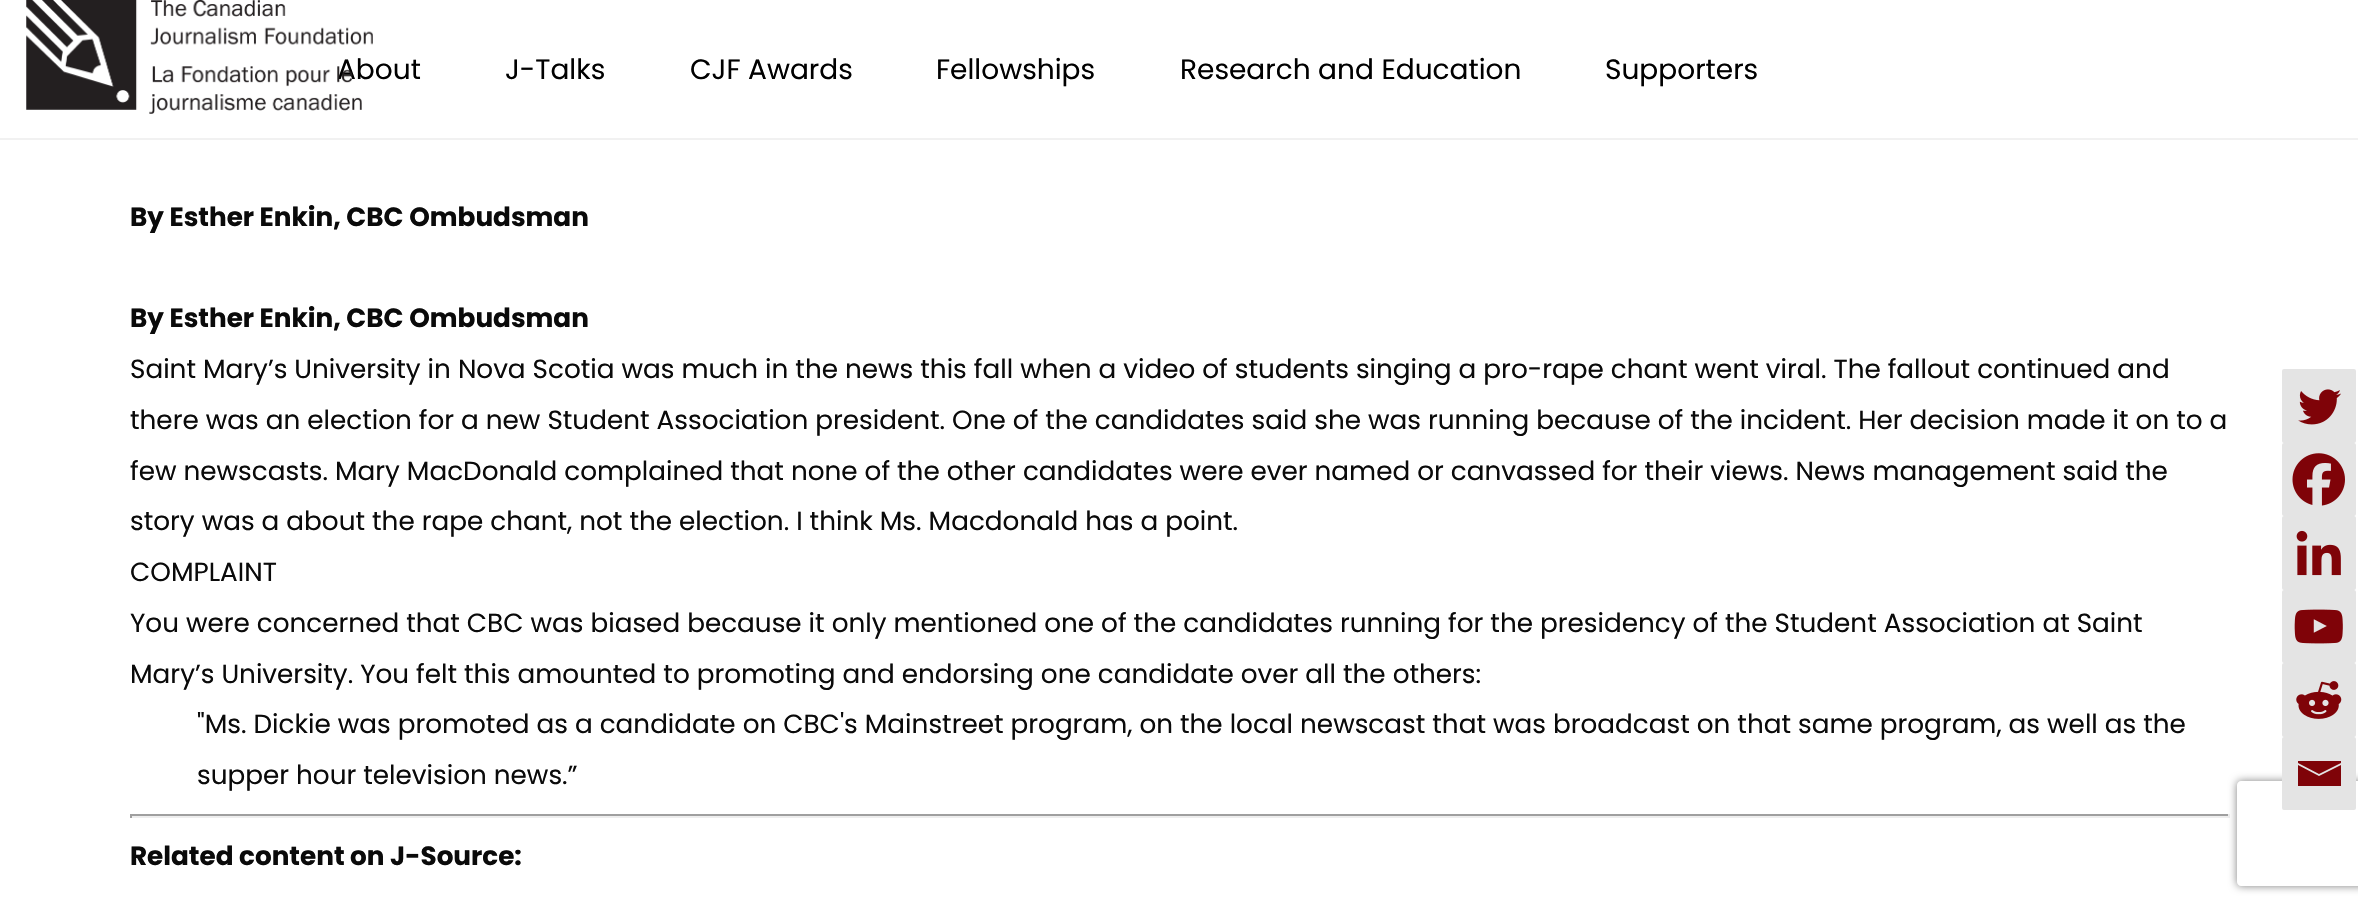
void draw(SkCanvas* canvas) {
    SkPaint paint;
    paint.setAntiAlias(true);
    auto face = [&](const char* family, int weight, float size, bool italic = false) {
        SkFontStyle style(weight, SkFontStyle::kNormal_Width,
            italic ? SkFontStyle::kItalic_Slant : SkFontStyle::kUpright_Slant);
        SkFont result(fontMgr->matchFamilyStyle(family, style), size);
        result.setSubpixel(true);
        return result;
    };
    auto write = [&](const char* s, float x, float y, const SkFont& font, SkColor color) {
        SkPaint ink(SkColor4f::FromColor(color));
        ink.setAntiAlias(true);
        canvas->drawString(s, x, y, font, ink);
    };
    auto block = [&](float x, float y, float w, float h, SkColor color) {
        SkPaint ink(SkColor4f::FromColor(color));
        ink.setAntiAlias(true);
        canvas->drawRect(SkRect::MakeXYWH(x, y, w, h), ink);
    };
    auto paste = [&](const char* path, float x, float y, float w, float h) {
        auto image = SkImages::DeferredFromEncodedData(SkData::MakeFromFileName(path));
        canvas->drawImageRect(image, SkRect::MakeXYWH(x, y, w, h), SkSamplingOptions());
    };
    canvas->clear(SK_ColorWHITE);
    block(0, 138, 2358, 2, SkColorSetRGB(241, 241, 241));
    auto kFont1 = face("Poppins", 400, 28);
    write("About", 337, 79, kFont1, SK_ColorBLACK);
    paste("pic1.png", 26, 0, 347, 114);
    write("J-Talks", 505, 79, kFont1, SK_ColorBLACK);
    write("CJF Awards", 690, 79, kFont1, SK_ColorBLACK);
    write("Fellowships", 936, 79, kFont1, SK_ColorBLACK);
    write("Research and Education", 1180, 79, kFont1, SK_ColorBLACK);
    write("Supporters", 1605, 79, kFont1, SK_ColorBLACK);
    auto kFont2 = face("Poppins", 700, 26.25f);
    write("By Esther Enkin, CBC Ombudsman", 130, 226, kFont2, SkColorSetRGB(10, 10, 10));
    write("By Esther Enkin, CBC Ombudsman", 130, 327, kFont2, SkColorSetRGB(10, 10, 10));
    auto kFont3 = face("Poppins", 400, 26.25f);
    write("Saint Mary’s University in Nova Scotia was much in the news this fall when a video of students singing a pro-rape chant went viral. The fallout continued and", 130, 378, kFont3, SkColorSetRGB(10, 10, 10));
    write("there was an election for a new Student Association president. One of the candidates said she was running because of the incident. Her decision made it on to a", 130, 429, kFont3, SkColorSetRGB(10, 10, 10));
    write("few newscasts. Mary MacDonald complained that none of the other candidates were ever named or canvassed for their views. News management said the", 130, 480, kFont3, SkColorSetRGB(10, 10, 10));
    write("story was a about the rape chant, not the election. I think Ms. Macdonald has a point.", 130, 530, kFont3, SkColorSetRGB(10, 10, 10));
    paint.setColor(SkColorSetRGB(228, 228, 228));
    canvas->drawRoundRect(SkRect::MakeXYWH(2283, 370, 72, 72), 1, 1, paint);
    paint.setStyle(SkPaint::kStroke_Style);
    paint.setStrokeWidth(2);
    canvas->drawRoundRect(SkRect::MakeXYWH(2283, 370, 72, 72), 1, 1, paint);
    paste("pic2.png", 2298, 389, 43, 36);
    paint.setStyle(SkPaint::kFill_Style);
    canvas->drawRoundRect(SkRect::MakeXYWH(2283, 444, 72, 71), 1, 1, paint);
    paint.setStyle(SkPaint::kStroke_Style);
    canvas->drawRoundRect(SkRect::MakeXYWH(2283, 444, 72, 71), 1, 1, paint);
    paste("pic3.png", 2292, 453, 53, 53);
    paint.setStyle(SkPaint::kFill_Style);
    canvas->drawRoundRect(SkRect::MakeXYWH(2283, 517, 72, 72), 1, 1, paint);
    paint.setStyle(SkPaint::kStroke_Style);
    canvas->drawRoundRect(SkRect::MakeXYWH(2283, 517, 72, 72), 1, 1, paint);
    paste("pic4.png", 2296, 530, 45, 46);
    paint.setStyle(SkPaint::kFill_Style);
    canvas->drawRoundRect(SkRect::MakeXYWH(2283, 591, 72, 71), 1, 1, paint);
    paint.setStyle(SkPaint::kStroke_Style);
    canvas->drawRoundRect(SkRect::MakeXYWH(2283, 591, 72, 71), 1, 1, paint);
    paste("pic5.png", 2294, 609, 49, 35);
    paint.setStyle(SkPaint::kFill_Style);
    canvas->drawRoundRect(SkRect::MakeXYWH(2283, 664, 72, 72), 1, 1, paint);
    paint.setStyle(SkPaint::kStroke_Style);
    canvas->drawRoundRect(SkRect::MakeXYWH(2283, 664, 72, 72), 1, 1, paint);
    paste("pic6.png", 2296, 681, 46, 38);
    block(130, 814, 2100, 2, SkColorSetRGB(159, 159, 159));
    block(2228, 814, 2, 4, SkColorSetRGB(238, 238, 238));
    block(130, 816, 2100, 2, SkColorSetRGB(238, 238, 238));
    canvas->save();
    canvas->clipPath(SkPathBuilder(SkPathFillType::kEvenOdd).moveTo(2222, 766).lineTo(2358, 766).lineTo(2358, 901).lineTo(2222, 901).close().moveTo(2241, 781).lineTo(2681, 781).cubicTo(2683, 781, 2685, 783, 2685, 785).lineTo(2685, 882).cubicTo(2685, 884, 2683, 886, 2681, 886).lineTo(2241, 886).cubicTo(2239, 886, 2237, 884, 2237, 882).lineTo(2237, 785).cubicTo(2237, 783, 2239, 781, 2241, 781).close().detach(), true);
    paint.setStyle(SkPaint::kFill_Style);
    paint.setColor(SkColorSetRGB(128, 128, 128));
    paint.setMaskFilter(SkMaskFilter::MakeBlur(kNormal_SkBlurStyle, 4.5f));
    canvas->drawRoundRect(SkRect::MakeXYWH(2237, 781, 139, 105), 4, 4, paint);
    paint.setMaskFilter(nullptr);
    canvas->restore();
    paint.setColor(SkColorSetRGB(228, 228, 228));
    canvas->drawRoundRect(SkRect::MakeXYWH(2283, 738, 72, 71), 1, 1, paint);
    paint.setStyle(SkPaint::kStroke_Style);
    canvas->drawRoundRect(SkRect::MakeXYWH(2283, 738, 72, 71), 1, 1, paint);
    paint.setStyle(SkPaint::kFill_Style);
    paint.setColor(SkColorSetRGB(127, 3, 8));
    canvas->drawPath(SkPathBuilder().moveTo(2296, 761).lineTo(2341, 761).lineTo(2341, 763).lineTo(2319, 774).lineTo(2298, 763).lineTo(2298, 761).moveTo(2298, 765).lineTo(2319, 776).lineTo(2341, 765).lineTo(2341, 786).lineTo(2298, 786).lineTo(2298, 765).detach(), paint);
    write("COMPLAINT", 130, 581, kFont3, SkColorSetRGB(10, 10, 10));
    write("You were concerned that CBC was biased because it only mentioned one of the candidates running for the presidency of the Student Association at Saint", 130, 632, kFont3, SkColorSetRGB(10, 10, 10));
    write("Mary’s University. You felt this amounted to promoting and endorsing one candidate over all the others:", 130, 683, kFont3, SkColorSetRGB(10, 10, 10));
    write("\"Ms. Dickie was promoted as a candidate on CBC's Mainstreet program, on the local newscast that was broadcast on that same program, as well as the", 197, 733, kFont3, SkColorSetRGB(10, 10, 10));
    write("supper hour television news.”", 197, 784, kFont3, SkColorSetRGB(10, 10, 10));
    block(130, 814, 2, 4, SkColorSetRGB(159, 159, 159));
    write("Related content on J-Source:", 130, 865, kFont2, SkColorSetRGB(10, 10, 10));
}
